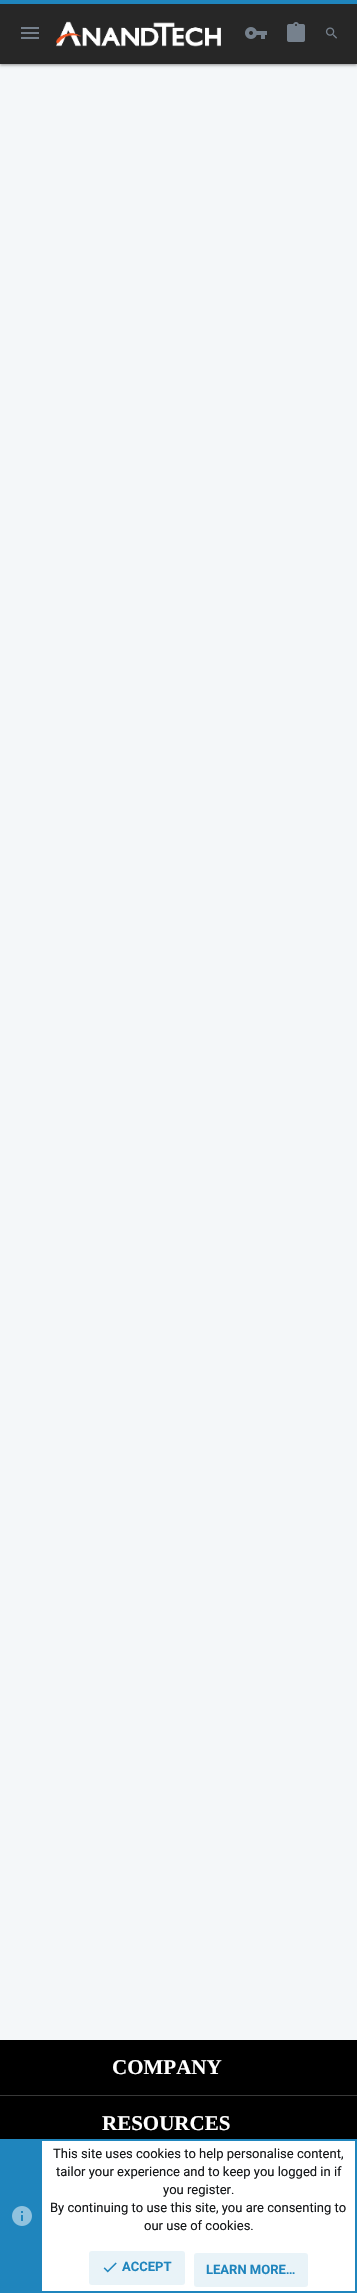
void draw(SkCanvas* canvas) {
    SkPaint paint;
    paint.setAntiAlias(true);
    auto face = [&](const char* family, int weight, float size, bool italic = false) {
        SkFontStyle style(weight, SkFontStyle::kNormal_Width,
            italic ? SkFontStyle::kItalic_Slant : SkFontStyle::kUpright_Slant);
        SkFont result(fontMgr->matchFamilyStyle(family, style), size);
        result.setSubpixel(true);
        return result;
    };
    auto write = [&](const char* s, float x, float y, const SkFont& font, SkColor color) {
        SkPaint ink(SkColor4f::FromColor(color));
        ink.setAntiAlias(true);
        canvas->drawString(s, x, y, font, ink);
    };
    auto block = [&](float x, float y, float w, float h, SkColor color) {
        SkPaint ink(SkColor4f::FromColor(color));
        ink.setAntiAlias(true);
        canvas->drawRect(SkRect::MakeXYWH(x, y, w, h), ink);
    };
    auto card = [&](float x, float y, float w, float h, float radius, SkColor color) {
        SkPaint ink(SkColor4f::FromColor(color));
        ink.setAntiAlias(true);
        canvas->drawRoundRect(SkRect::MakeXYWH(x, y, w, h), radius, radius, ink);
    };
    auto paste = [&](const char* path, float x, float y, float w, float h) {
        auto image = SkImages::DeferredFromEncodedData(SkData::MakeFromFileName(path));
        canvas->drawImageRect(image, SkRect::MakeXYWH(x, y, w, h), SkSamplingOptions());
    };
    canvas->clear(SkColorSetRGB(244, 247, 249));
    paint.setColor(SkColorSetARGB(51, 0, 0, 0));
    paint.setMaskFilter(SkMaskFilter::MakeBlur(kNormal_SkBlurStyle, 1.5f));
    canvas->drawRect(SkRect::MakeXYWH(0, 1, 357, 64), paint);
    paint.setMaskFilter(nullptr);
    paint.setColor(SkColorSetARGB(31, 0, 0, 0));
    paint.setMaskFilter(SkMaskFilter::MakeBlur(kNormal_SkBlurStyle, 1));
    canvas->drawRect(SkRect::MakeXYWH(0, 2, 357, 64), paint);
    paint.setMaskFilter(nullptr);
    paint.setColor(SkColorSetARGB(36, 0, 0, 0));
    paint.setMaskFilter(SkMaskFilter::MakeBlur(kNormal_SkBlurStyle, 1));
    canvas->drawRect(SkRect::MakeXYWH(0, 0, 357, 64), paint);
    paint.setMaskFilter(nullptr);
    block(0, 4, 357, 60, SkColorSetRGB(39, 39, 39));
    block(0, 0, 357, 4, SkColorSetRGB(31, 133, 189));
    paste("pic1.png", 21, 27, 18, 12);
    paste("pic2.png", 56, 21, 165, 26);
    paste("pic3.png", 245, 27, 22, 12);
    paste("pic4.png", 287, 22, 18, 20);
    paste("pic5.png", 325, 27, 12, 12);
    block(0, 2040, 357, 55, SK_ColorBLACK);
    block(0, 2095, 357, 1, SkColorSetRGB(56, 56, 56));
    auto kFont1 = face("Liberation Serif", 700, 21);
    write("COMPANY", 112, 2074, kFont1, SK_ColorWHITE);
    block(0, 2096, 357, 43, SK_ColorBLACK);
    write("RESOURCES", 102, 2130, kFont1, SK_ColorWHITE);
    block(42, 2141, 313, 150, SK_ColorWHITE);
    paint.setStyle(SkPaint::kStroke_Style);
    paint.setStrokeWidth(2);
    paint.setColor(SkColorSetRGB(31, 133, 189));
    canvas->drawRect(SkRect::MakeXYWH(1, 2140, 355, 152), paint);
    block(2, 2141, 40, 150, SkColorSetRGB(31, 133, 189));
    paste("pic6.png", 12, 2206, 20, 20);
    auto kFont2 = face("Roboto", 400, 13);
    write("This site uses cookies to help personalise content,", 53, 2158, kFont2, SkColorSetRGB(20, 22, 24));
    write("tailor your experience and to keep you logged in if", 56, 2176, kFont2, SkColorSetRGB(20, 22, 24));
    write("you register.", 163, 2194, kFont2, SkColorSetRGB(20, 22, 24));
    write("By continuing to use this site, you are consenting to", 50, 2212, kFont2, SkColorSetRGB(20, 22, 24));
    write("our use of cookies.", 144, 2230, kFont2, SkColorSetRGB(20, 22, 24));
    card(89, 2251, 96, 34, 3, SkColorSetRGB(233, 243, 248));
    paste("pic7.png", 103, 2262, 14, 11);
    auto kFont3 = face("Roboto", 700, 13);
    write("ACCEPT", 122, 2271, kFont3, SkColorSetRGB(31, 133, 189));
    card(194, 2253, 114, 34, 3, SkColorSetRGB(233, 243, 248));
    write("LEARN MORE…", 206, 2274, kFont3, SkColorSetRGB(31, 133, 189));
}
